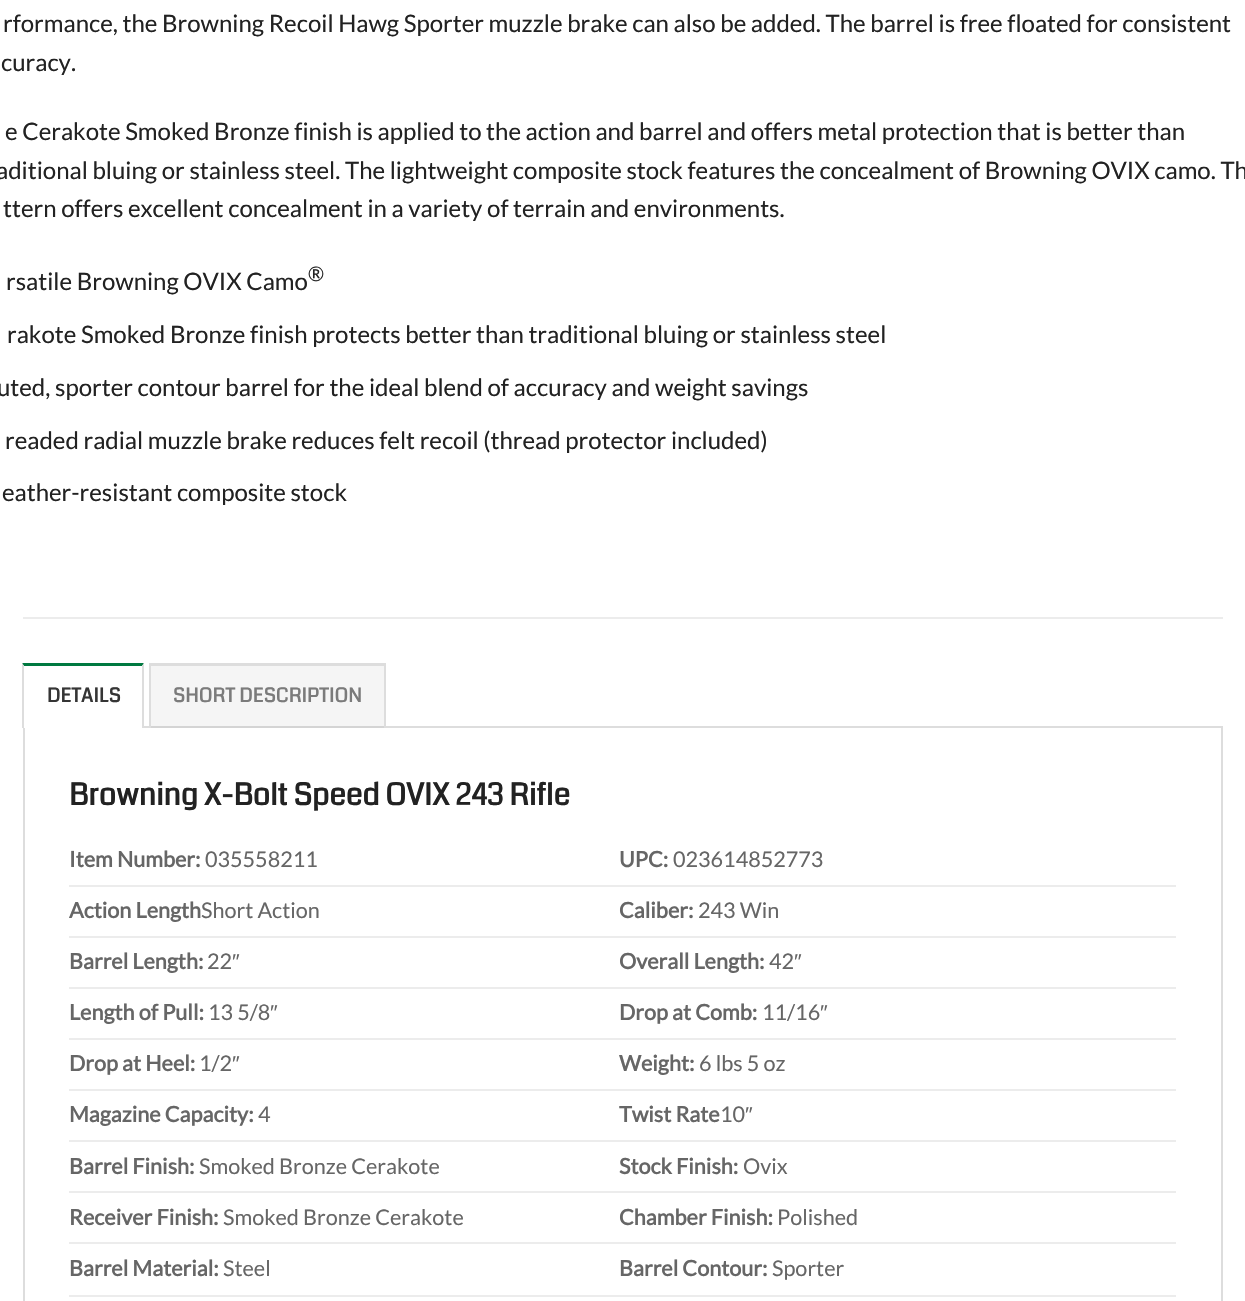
void draw(SkCanvas* canvas) {
    SkPaint paint;
    paint.setAntiAlias(true);
    auto face = [&](const char* family, int weight, float size, bool italic = false) {
        SkFontStyle style(weight, SkFontStyle::kNormal_Width,
            italic ? SkFontStyle::kItalic_Slant : SkFontStyle::kUpright_Slant);
        SkFont result(fontMgr->matchFamilyStyle(family, style), size);
        result.setSubpixel(true);
        return result;
    };
    auto write = [&](const char* s, float x, float y, const SkFont& font, SkColor color) {
        SkPaint ink(SkColor4f::FromColor(color));
        ink.setAntiAlias(true);
        canvas->drawString(s, x, y, font, ink);
    };
    auto writeSpaced = [&](const char* s, float x, float y, const SkFont& font, const SkPaint& ink, float letter, float word) {
        std::vector<SkGlyphID> glyphs(font.countText(s, strlen(s), SkTextEncoding::kUTF8));
        std::vector<float> xs(glyphs.size());
        font.textToGlyphs(s, strlen(s), SkTextEncoding::kUTF8, glyphs);
        font.getXPos(glyphs, xs, x);
        float extra = 0;
        for (size_t i = 0; i < glyphs.size(); i++) {
            xs[i] += extra;
            extra += letter + word * (glyphs[i] == font.unicharToGlyph(' '));
        }
        canvas->drawTextBlob(SkTextBlob::MakeFromPosHGlyphs(glyphs, xs, y, font), 0, 0, ink);
    };
    auto block = [&](float x, float y, float w, float h, SkColor color) {
        SkPaint ink(SkColor4f::FromColor(color));
        ink.setAntiAlias(true);
        canvas->drawRect(SkRect::MakeXYWH(x, y, w, h), ink);
    };
    canvas->clear(SK_ColorWHITE);
    auto kFont1 = face("Lato", 400, 24);
    write("rformance, the Browning Recoil Hawg Sporter muzzle brake can also be added. The barrel is free floated for consistent", 3, 32, kFont1, SkColorSetRGB(34, 34, 34));
    write("curacy.", 1, 71, kFont1, SkColorSetRGB(34, 34, 34));
    write("e Cerakote Smoked Bronze finish is applied to the action and barrel and offers metal protection that is better than", 5, 140, kFont1, SkColorSetRGB(34, 34, 34));
    write("aditional bluing or stainless steel. The lightweight composite stock features the concealment of Browning OVIX camo. Th", -4, 179, kFont1, SkColorSetRGB(34, 34, 34));
    write("ttern offers excellent concealment in a variety of terrain and environments.", 3, 217, kFont1, SkColorSetRGB(34, 34, 34));
    write("rsatile Browning OVIX Camo", 6, 290, kFont1, SkColorSetRGB(34, 34, 34));
    auto kFont2 = face("Lato", 400, 20);
    write("®", 308, 281, kFont2, SkColorSetRGB(34, 34, 34));
    write("rakote Smoked Bronze finish protects better than traditional bluing or stainless steel", 7, 343, kFont1, SkColorSetRGB(34, 34, 34));
    write("uted, sporter contour barrel for the ideal blend of accuracy and weight savings", -3, 396, kFont1, SkColorSetRGB(34, 34, 34));
    write("readed radial muzzle brake reduces felt recoil (thread protector included)", 5, 449, kFont1, SkColorSetRGB(34, 34, 34));
    write("eather-resistant composite stock", 2, 501, kFont1, SkColorSetRGB(34, 34, 34));
    block(23, 617, 1200, 2, SkColorSetRGB(236, 236, 236));
    paint.setStyle(SkPaint::kStroke_Style);
    paint.setStrokeWidth(2);
    paint.setColor(SkColorSetRGB(221, 221, 221));
    canvas->drawRect(SkRect::MakeXYWH(24, 727, 1198, 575), paint);
    block(23, 726, 121, 2, SK_ColorWHITE);
    paint.setStyle(SkPaint::kFill_Style);
    paint.setColor(SkColorSetRGB(0, 121, 64));
    canvas->drawPath(SkPathBuilder().moveTo(22, 663).lineTo(144, 663).lineTo(142, 666).lineTo(24, 666).close().detach(), paint);
    paint.setColor(SkColorSetRGB(221, 221, 221));
    canvas->drawPath(SkPathBuilder().moveTo(144, 663).lineTo(144, 728).lineTo(142, 728).lineTo(142, 666).close().detach(), paint);
    canvas->drawPath(SkPathBuilder().moveTo(22, 728).lineTo(22, 663).lineTo(24, 666).lineTo(24, 728).close().detach(), paint);
    auto kFont3 = face("Coda", 700, 19.25f);
    paint.setColor(SkColorSetRGB(53, 53, 53));
    writeSpaced("DETAILS", 47, 702, kFont3, paint, 0.4f, 0);
    block(151, 666, 233, 62, SkColorSetARGB(10, 0, 0, 0));
    block(149, 663, 237, 3, SkColorSetRGB(221, 221, 221));
    block(384, 663, 2, 65, SkColorSetRGB(221, 221, 221));
    block(149, 663, 2, 65, SkColorSetRGB(221, 221, 221));
    paint.setColor(SkColorSetRGB(123, 123, 123));
    writeSpaced("SHORT DESCRIPTION", 173, 702, kFont3, paint, 0.4f, 0);
    auto kFont4 = face("Coda", 700, 30);
    write("Browning X-Bolt Speed OVIX 243 Rifle", 69, 805, kFont4, SkColorSetRGB(34, 34, 34));
    block(69, 885, 1107, 2, SkColorSetRGB(236, 236, 236));
    auto kFont5 = face("Lato", 700, 21.6f);
    write("Item Number:", 69, 867, kFont5, SkColorSetRGB(102, 102, 102));
    auto kFont6 = face("Lato", 400, 21.6f);
    write("035558211", 205, 867, kFont6, SkColorSetRGB(102, 102, 102));
    write("UPC:", 619, 867, kFont5, SkColorSetRGB(102, 102, 102));
    write("023614852773", 673, 867, kFont6, SkColorSetRGB(102, 102, 102));
    block(69, 936, 1107, 2, SkColorSetRGB(236, 236, 236));
    write("Action Length", 69, 918, kFont5, SkColorSetRGB(102, 102, 102));
    write("Short Action", 201, 918, kFont6, SkColorSetRGB(102, 102, 102));
    write("Caliber:", 619, 918, kFont5, SkColorSetRGB(102, 102, 102));
    write("243 Win", 698, 918, kFont6, SkColorSetRGB(102, 102, 102));
    block(69, 987, 1107, 2, SkColorSetRGB(236, 236, 236));
    write("Barrel Length:", 69, 969, kFont5, SkColorSetRGB(102, 102, 102));
    write("22", 207, 969, kFont6, SkColorSetRGB(102, 102, 102));
    auto kFont7 = face("Liberation Sans", 400, 21.6f);
    write("″", 232, 969, kFont7, SkColorSetRGB(102, 102, 102));
    write("Overall Length:", 619, 969, kFont5, SkColorSetRGB(102, 102, 102));
    write("42", 769, 969, kFont6, SkColorSetRGB(102, 102, 102));
    write("″", 794, 969, kFont7, SkColorSetRGB(102, 102, 102));
    block(69, 1038, 1107, 2, SkColorSetRGB(236, 236, 236));
    write("Length of Pull:", 69, 1020, kFont5, SkColorSetRGB(102, 102, 102));
    write("13 5/8", 208, 1020, kFont6, SkColorSetRGB(102, 102, 102));
    write("″", 270, 1020, kFont7, SkColorSetRGB(102, 102, 102));
    write("Drop at Comb:", 619, 1020, kFont5, SkColorSetRGB(102, 102, 102));
    write("11/16", 762, 1020, kFont6, SkColorSetRGB(102, 102, 102));
    write("″", 820, 1020, kFont7, SkColorSetRGB(102, 102, 102));
    block(69, 1089, 1107, 2, SkColorSetRGB(236, 236, 236));
    write("Drop at Heel:", 69, 1071, kFont5, SkColorSetRGB(102, 102, 102));
    write("1/2", 199, 1071, kFont6, SkColorSetRGB(102, 102, 102));
    write("″", 232, 1071, kFont7, SkColorSetRGB(102, 102, 102));
    write("Weight:", 619, 1071, kFont5, SkColorSetRGB(102, 102, 102));
    write("6 lbs 5 oz", 699, 1071, kFont6, SkColorSetRGB(102, 102, 102));
    block(69, 1140, 1107, 2, SkColorSetRGB(236, 236, 236));
    write("Magazine Capacity:", 69, 1122, kFont5, SkColorSetRGB(102, 102, 102));
    write("4", 258, 1122, kFont6, SkColorSetRGB(102, 102, 102));
    write("Twist Rate", 619, 1122, kFont5, SkColorSetRGB(102, 102, 102));
    write("10", 720, 1122, kFont6, SkColorSetRGB(102, 102, 102));
    write("″", 745, 1122, kFont7, SkColorSetRGB(102, 102, 102));
    block(69, 1191, 1107, 2, SkColorSetRGB(236, 236, 236));
    write("Barrel Finish:", 69, 1174, kFont5, SkColorSetRGB(102, 102, 102));
    write("Smoked Bronze Cerakote", 199, 1174, kFont6, SkColorSetRGB(102, 102, 102));
    write("Stock Finish:", 619, 1174, kFont5, SkColorSetRGB(102, 102, 102));
    write("Ovix", 743, 1174, kFont6, SkColorSetRGB(102, 102, 102));
    block(69, 1242, 1107, 2, SkColorSetRGB(236, 236, 236));
    write("Receiver Finish:", 69, 1225, kFont5, SkColorSetRGB(102, 102, 102));
    write("Smoked Bronze Cerakote", 223, 1225, kFont6, SkColorSetRGB(102, 102, 102));
    write("Chamber Finish:", 619, 1225, kFont5, SkColorSetRGB(102, 102, 102));
    write("Polished", 777, 1225, kFont6, SkColorSetRGB(102, 102, 102));
    block(69, 1295, 1107, 2, SkColorSetRGB(236, 236, 236));
    write("Barrel Material:", 69, 1276, kFont5, SkColorSetRGB(102, 102, 102));
    write("Steel", 223, 1276, kFont6, SkColorSetRGB(102, 102, 102));
    write("Barrel Contour:", 619, 1276, kFont5, SkColorSetRGB(102, 102, 102));
    write("Sporter", 772, 1276, kFont6, SkColorSetRGB(102, 102, 102));
}
